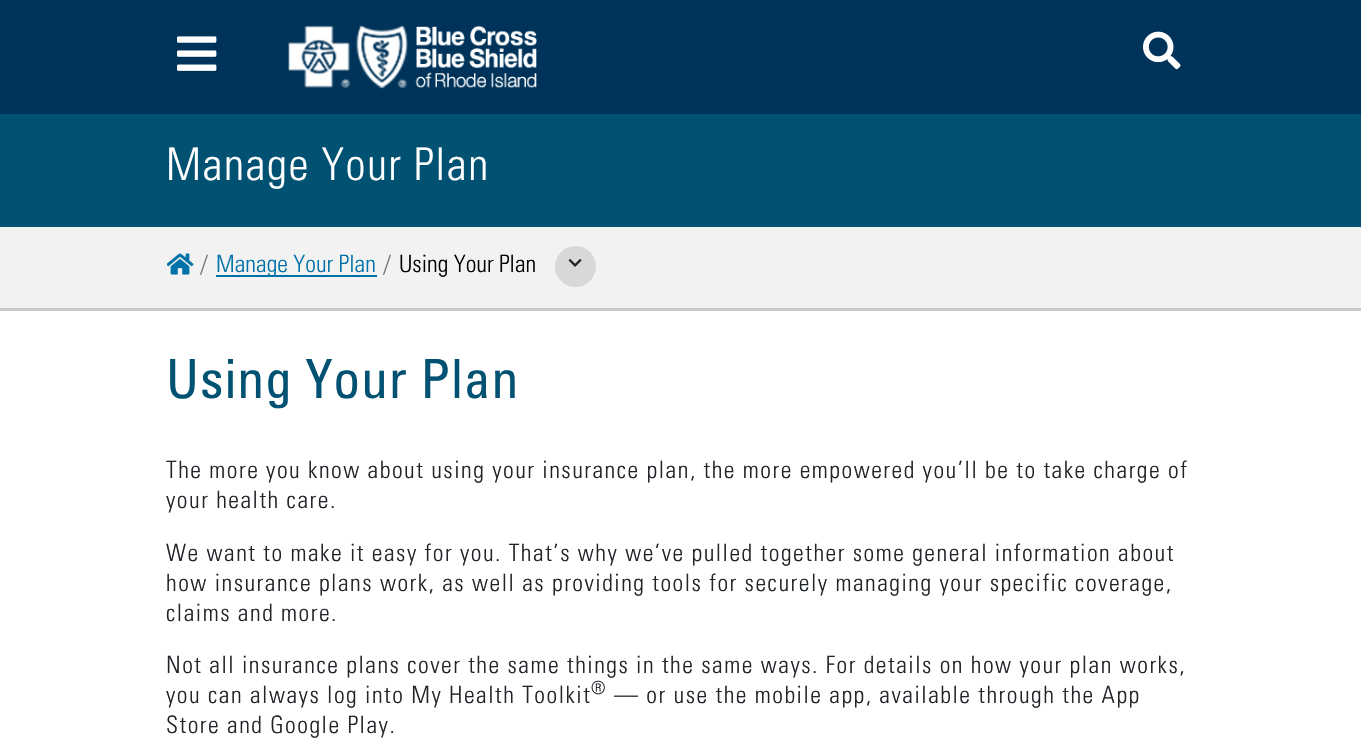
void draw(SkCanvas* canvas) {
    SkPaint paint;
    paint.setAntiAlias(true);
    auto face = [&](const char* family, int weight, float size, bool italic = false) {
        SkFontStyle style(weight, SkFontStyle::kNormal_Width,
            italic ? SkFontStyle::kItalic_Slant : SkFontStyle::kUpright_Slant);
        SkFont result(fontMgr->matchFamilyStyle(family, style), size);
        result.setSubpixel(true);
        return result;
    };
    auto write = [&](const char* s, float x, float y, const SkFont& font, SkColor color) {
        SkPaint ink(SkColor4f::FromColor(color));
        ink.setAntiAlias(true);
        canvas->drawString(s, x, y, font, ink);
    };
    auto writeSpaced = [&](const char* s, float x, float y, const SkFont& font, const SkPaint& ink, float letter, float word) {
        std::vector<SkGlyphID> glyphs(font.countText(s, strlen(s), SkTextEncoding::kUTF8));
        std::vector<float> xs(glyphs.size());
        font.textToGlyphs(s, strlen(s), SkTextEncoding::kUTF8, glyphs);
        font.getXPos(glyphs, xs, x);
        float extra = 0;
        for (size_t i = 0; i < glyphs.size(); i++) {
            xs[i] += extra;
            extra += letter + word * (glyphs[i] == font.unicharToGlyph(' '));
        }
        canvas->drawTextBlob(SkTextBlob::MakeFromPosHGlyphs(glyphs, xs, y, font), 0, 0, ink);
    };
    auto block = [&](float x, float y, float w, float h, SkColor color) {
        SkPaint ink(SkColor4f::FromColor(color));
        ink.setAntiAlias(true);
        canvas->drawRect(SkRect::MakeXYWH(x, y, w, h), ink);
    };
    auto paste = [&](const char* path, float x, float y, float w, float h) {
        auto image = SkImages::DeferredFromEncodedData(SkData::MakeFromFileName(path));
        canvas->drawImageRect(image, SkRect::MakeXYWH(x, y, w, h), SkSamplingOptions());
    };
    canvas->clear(SkColorSetRGB(0, 51, 89));
    paste("pic1.png", 177, 36, 40, 35);
    paste("pic2.png", 288, 25, 249, 64);
    paste("pic3.png", 1143, 31, 38, 39);
    block(0, 114, 1361, 113, SkColorSetRGB(0, 81, 114));
    auto kFont1 = face("Univers", 300, 45);
    paint.setColor(SK_ColorWHITE);
    writeSpaced("Manage Your Plan", 166, 180, kFont1, paint, 1.5f, 0);
    block(0, 311, 1361, 444, SK_ColorWHITE);
    block(0, 227, 1361, 81, SkColorSetRGB(242, 242, 242));
    block(0, 308, 1361, 3, SkColorSetRGB(202, 202, 200));
    paste("pic4.png", 167, 253, 27, 22);
    auto kFont2 = face("Univers", 300, 24);
    write("/", 200, 272, kFont2, SkColorSetRGB(108, 117, 125));
    block(216, 275, 161, 2, SkColorSetRGB(0, 114, 167));
    write("Manage Your Plan", 216, 272, kFont2, SkColorSetRGB(0, 114, 167));
    write("/", 383, 272, kFont2, SkColorSetRGB(108, 117, 125));
    write("Using Your Plan", 399, 272, kFont2, SK_ColorBLACK);
    paint.setColor(SkColorSetRGB(216, 216, 216));
    canvas->drawCircle(575.5f, 266.5f, 20.5f, paint);
    paste("pic5.png", 568, 259, 14, 8);
    auto kFont3 = face("Univers", 400, 54);
    paint.setColor(SkColorSetRGB(0, 81, 114));
    writeSpaced("Using Your Plan", 166, 398, kFont3, paint, 0.75f, 0);
    paint.setColor(SkColorSetRGB(33, 37, 41));
    writeSpaced("The more you know about using your insurance plan, the more empowered you’ll be to take charge of", 166, 478, kFont2, paint, 1.5f, 0);
    writeSpaced("your health care.", 166, 508, kFont2, paint, 1.5f, 0);
    writeSpaced("We want to make it easy for you. That’s why we’ve pulled together some general information about", 166, 561, kFont2, paint, 1.5f, 0);
    writeSpaced("how insurance plans work, as well as providing tools for securely managing your specific coverage,", 166, 591, kFont2, paint, 1.5f, 0);
    writeSpaced("claims and more.", 166, 621, kFont2, paint, 1.5f, 0);
    writeSpaced("Not all insurance plans cover the same things in the same ways. For details on how your plan works,", 166, 673, kFont2, paint, 1.5f, 0);
    writeSpaced("you can always log into My Health Toolkit", 166, 703, kFont2, paint, 1.5f, 0);
    auto kFont4 = face("Univers", 300, 18);
    writeSpaced("®", 591, 694, kFont4, paint, 1.5f, 0);
    writeSpaced("— or use the mobile app, available through the App", 614, 703, kFont2, paint, 1.5f, 0);
    writeSpaced("Store and Google Play.", 166, 733, kFont2, paint, 1.5f, 0);
}
